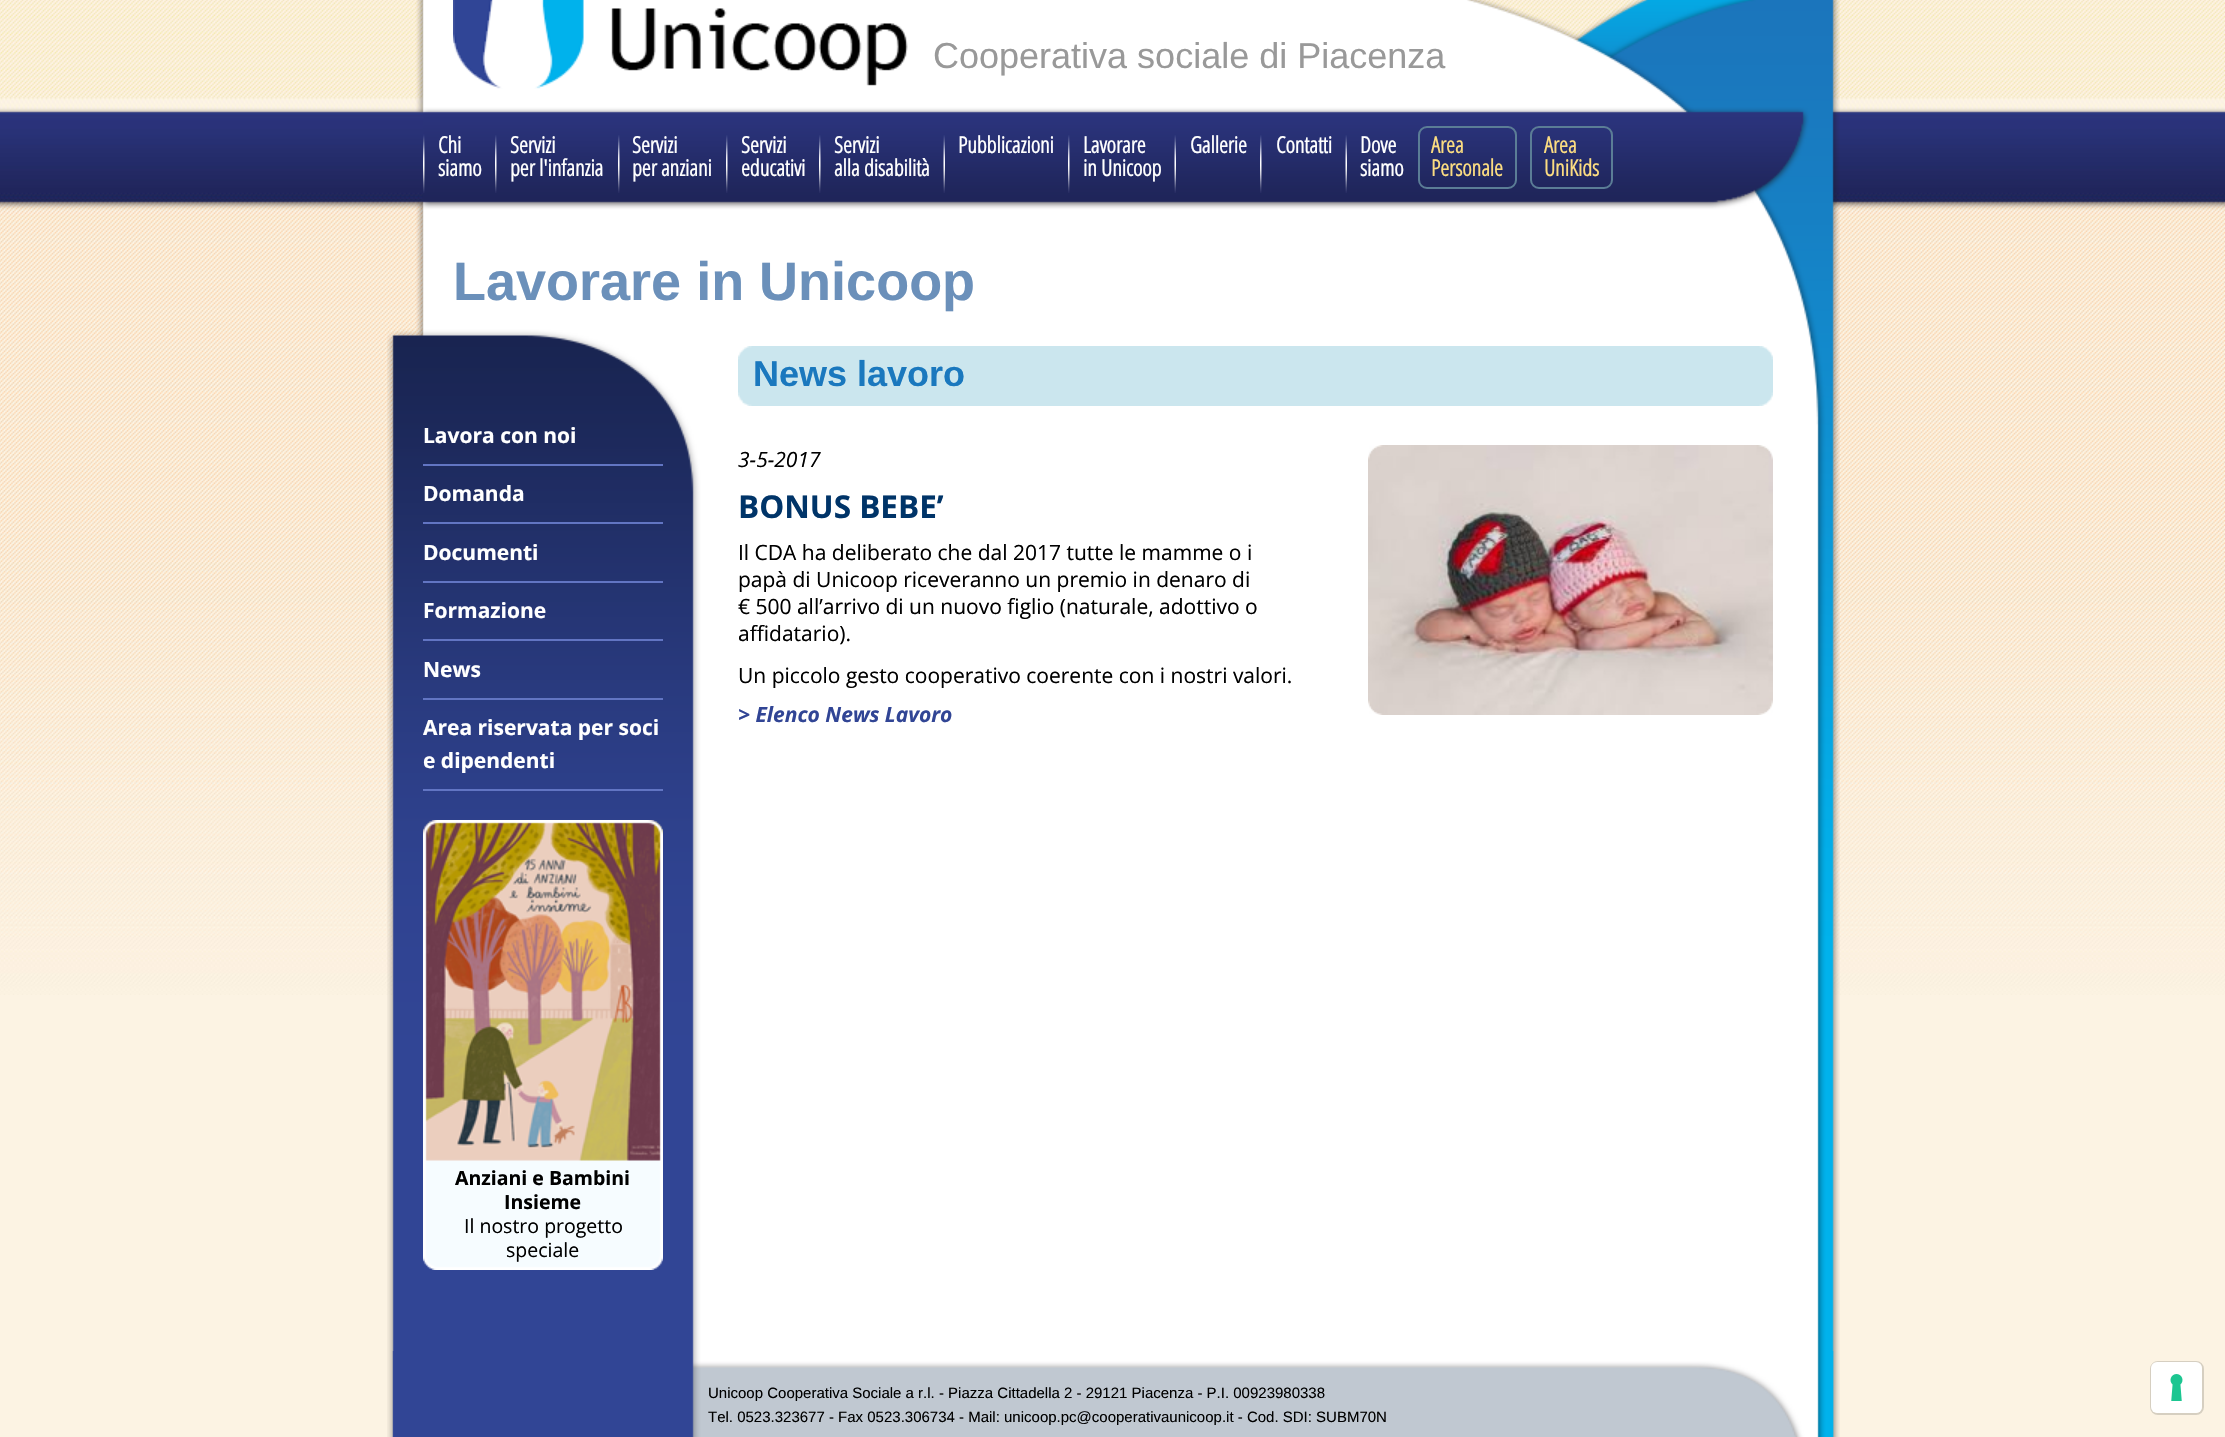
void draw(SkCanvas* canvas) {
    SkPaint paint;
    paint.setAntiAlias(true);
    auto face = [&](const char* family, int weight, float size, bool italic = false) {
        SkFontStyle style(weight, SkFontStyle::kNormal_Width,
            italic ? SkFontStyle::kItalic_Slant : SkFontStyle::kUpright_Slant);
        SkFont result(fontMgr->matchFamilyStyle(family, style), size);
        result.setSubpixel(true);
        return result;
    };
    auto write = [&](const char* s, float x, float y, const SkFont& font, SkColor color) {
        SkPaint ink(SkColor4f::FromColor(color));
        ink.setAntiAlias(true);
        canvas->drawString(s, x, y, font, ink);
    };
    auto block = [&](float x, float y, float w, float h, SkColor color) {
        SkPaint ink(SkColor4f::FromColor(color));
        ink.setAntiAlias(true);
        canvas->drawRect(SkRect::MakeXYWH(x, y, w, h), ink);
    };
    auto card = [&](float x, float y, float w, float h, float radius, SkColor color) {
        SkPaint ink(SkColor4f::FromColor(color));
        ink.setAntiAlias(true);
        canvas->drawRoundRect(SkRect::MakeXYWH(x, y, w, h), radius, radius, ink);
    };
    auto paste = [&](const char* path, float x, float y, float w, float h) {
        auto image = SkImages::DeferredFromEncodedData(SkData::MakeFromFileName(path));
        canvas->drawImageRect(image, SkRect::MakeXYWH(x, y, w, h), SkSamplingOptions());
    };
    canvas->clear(SkColorSetRGB(252, 243, 227));
    paste("pic1.png", 0, 0, 2225, 995);
    paste("pic2.png", 387, 0, 1453, 1437);
    paste("pic3.png", 453, 0, 455, 89);
    auto kFont1 = face("Liberation Sans", 400, 36);
    write("Cooperativa sociale di Piacenza", 933, 68, kFont1, SkColorSetRGB(153, 153, 153));
    paste("pic4.png", 423, 134, 2, 59);
    auto kFont2 = face("Open Sans Condensed", 700, 22.5f);
    write("Chi", 438, 153, kFont2, SK_ColorWHITE);
    write("siamo", 438, 176, kFont2, SK_ColorWHITE);
    paste("pic5.png", 495, 135, 2, 58);
    write("Servizi", 510, 153, kFont2, SK_ColorWHITE);
    write("per l'infanzia", 510, 176, kFont2, SK_ColorWHITE);
    paste("pic5.png", 618, 135, 2, 58);
    write("Servizi", 632, 153, kFont2, SK_ColorWHITE);
    write("per anziani", 632, 176, kFont2, SK_ColorWHITE);
    paste("pic5.png", 726, 135, 2, 58);
    write("Servizi", 741, 153, kFont2, SK_ColorWHITE);
    write("educativi", 741, 176, kFont2, SK_ColorWHITE);
    paste("pic5.png", 819, 135, 2, 58);
    write("Servizi", 834, 153, kFont2, SK_ColorWHITE);
    write("alla disabilità", 834, 176, kFont2, SK_ColorWHITE);
    paste("pic6.png", 943, 135, 2, 58);
    write("Pubblicazioni", 958, 153, kFont2, SK_ColorWHITE);
    paste("pic5.png", 1068, 135, 2, 58);
    write("Lavorare", 1083, 153, kFont2, SK_ColorWHITE);
    write("in Unicoop", 1083, 176, kFont2, SK_ColorWHITE);
    paste("pic6.png", 1174, 135, 2, 58);
    write("Gallerie", 1190, 153, kFont2, SK_ColorWHITE);
    paste("pic5.png", 1260, 135, 2, 58);
    write("Contatti", 1276, 153, kFont2, SK_ColorWHITE);
    paste("pic6.png", 1345, 135, 2, 58);
    write("Dove", 1360, 153, kFont2, SK_ColorWHITE);
    write("siamo", 1360, 176, kFont2, SK_ColorWHITE);
    paint.setStyle(SkPaint::kStroke_Style);
    paint.setStrokeWidth(2);
    paint.setColor(SkColorSetRGB(91, 125, 150));
    canvas->drawRoundRect(SkRect::MakeXYWH(1419, 127, 97, 61), 8, 8, paint);
    write("Area", 1431, 153, kFont2, SkColorSetRGB(251, 220, 129));
    write("Personale", 1431, 176, kFont2, SkColorSetRGB(251, 220, 129));
    canvas->drawRoundRect(SkRect::MakeXYWH(1531, 127, 81, 61), 8, 8, paint);
    write("Area", 1544, 153, kFont2, SkColorSetRGB(251, 220, 129));
    write("UniKids", 1544, 176, kFont2, SkColorSetRGB(251, 220, 129));
    auto kFont3 = face("Liberation Sans", 700, 54);
    write("Lavorare in Unicoop", 453, 300, kFont3, SkColorSetRGB(107, 144, 186));
    block(423, 464, 240, 2, SkColorSetRGB(98, 117, 195));
    auto kFont4 = face("Open Sans", 700, 21);
    write("Lavora con noi", 423, 443, kFont4, SK_ColorWHITE);
    block(423, 522, 240, 2, SkColorSetRGB(98, 117, 195));
    write("Domanda", 423, 501, kFont4, SK_ColorWHITE);
    block(423, 581, 240, 2, SkColorSetRGB(98, 117, 195));
    write("Documenti", 423, 560, kFont4, SK_ColorWHITE);
    block(423, 639, 240, 2, SkColorSetRGB(98, 117, 195));
    write("Formazione", 423, 618, kFont4, SK_ColorWHITE);
    block(423, 698, 240, 2, SkColorSetRGB(98, 117, 195));
    write("News", 423, 677, kFont4, SK_ColorWHITE);
    block(423, 789, 240, 2, SkColorSetRGB(98, 117, 195));
    write("Area riservata per soci", 423, 735, kFont4, SK_ColorWHITE);
    write("e dipendenti", 423, 768, kFont4, SK_ColorWHITE);
    paste("pic7.png", 423, 820, 240, 450);
    auto kFont5 = face("Open Sans", 700, 19.5f);
    write("Anziani e Bambini", 455, 1185, kFont5, SK_ColorBLACK);
    write("Insieme", 504, 1209, kFont5, SK_ColorBLACK);
    auto kFont6 = face("Open Sans", 400, 19.5f);
    write("Il nostro progetto", 464, 1233, kFont6, SK_ColorBLACK);
    write("speciale", 506, 1257, kFont6, SK_ColorBLACK);
    paste("pic8.png", 738, 346, 1035, 60);
    auto kFont7 = face("Liberation Sans", 700, 36);
    write("News lavoro", 753, 386, kFont7, SkColorSetRGB(26, 120, 190));
    auto kFont8 = face("Open Sans", 400, 21, true);
    write("3-5-2017", 738, 467, kFont8, SK_ColorBLACK);
    auto kFont9 = face("Open Sans", 700, 31.5f);
    write("BONUS BEBE’", 738, 518, kFont9, SkColorSetRGB(0, 52, 104));
    auto kFont10 = face("Open Sans", 400, 21);
    write("Il CDA ha deliberato che dal 2017 tutte le mamme o i", 738, 560, kFont10, SK_ColorBLACK);
    write("papà di Unicoop riceveranno un premio in denaro di", 738, 587, kFont10, SK_ColorBLACK);
    write("€ 500 all’arrivo di un nuovo figlio (naturale, adottivo o", 738, 614, kFont10, SK_ColorBLACK);
    write("affidatario).", 738, 641, kFont10, SK_ColorBLACK);
    write("Un piccolo gesto cooperativo coerente con i nostri valori.", 738, 683, kFont10, SK_ColorBLACK);
    auto kFont11 = face("Open Sans", 700, 21, true);
    write("> Elenco News Lavoro", 738, 722, kFont11, SkColorSetRGB(49, 69, 149));
    paste("pic9.png", 1368, 445, 405, 270);
    paste("pic10.png", 392, 1351, 1442, 86);
    auto kFont12 = face("Liberation Sans", 400, 15);
    write("Unicoop Cooperativa Sociale a r.l. - Piazza Cittadella 2 - 29121 Piacenza - P.I. 00923980338", 708, 1398, kFont12, SK_ColorBLACK);
    write("Tel. 0523.323677 - Fax 0523.306734 - Mail: unicoop.pc@cooperativaunicoop.it - Cod. SDI: SUBM70N", 708, 1422, kFont12, SK_ColorBLACK);
    paint.setColor(SkColorSetRGB(214, 207, 193));
    canvas->drawRoundRect(SkRect::MakeXYWH(2151, 1362, 52, 52), 7, 7, paint);
    card(2151, 1362, 51, 51, 6, SK_ColorWHITE);
    paste("pic11.png", 2170, 1374, 13, 27);
}
